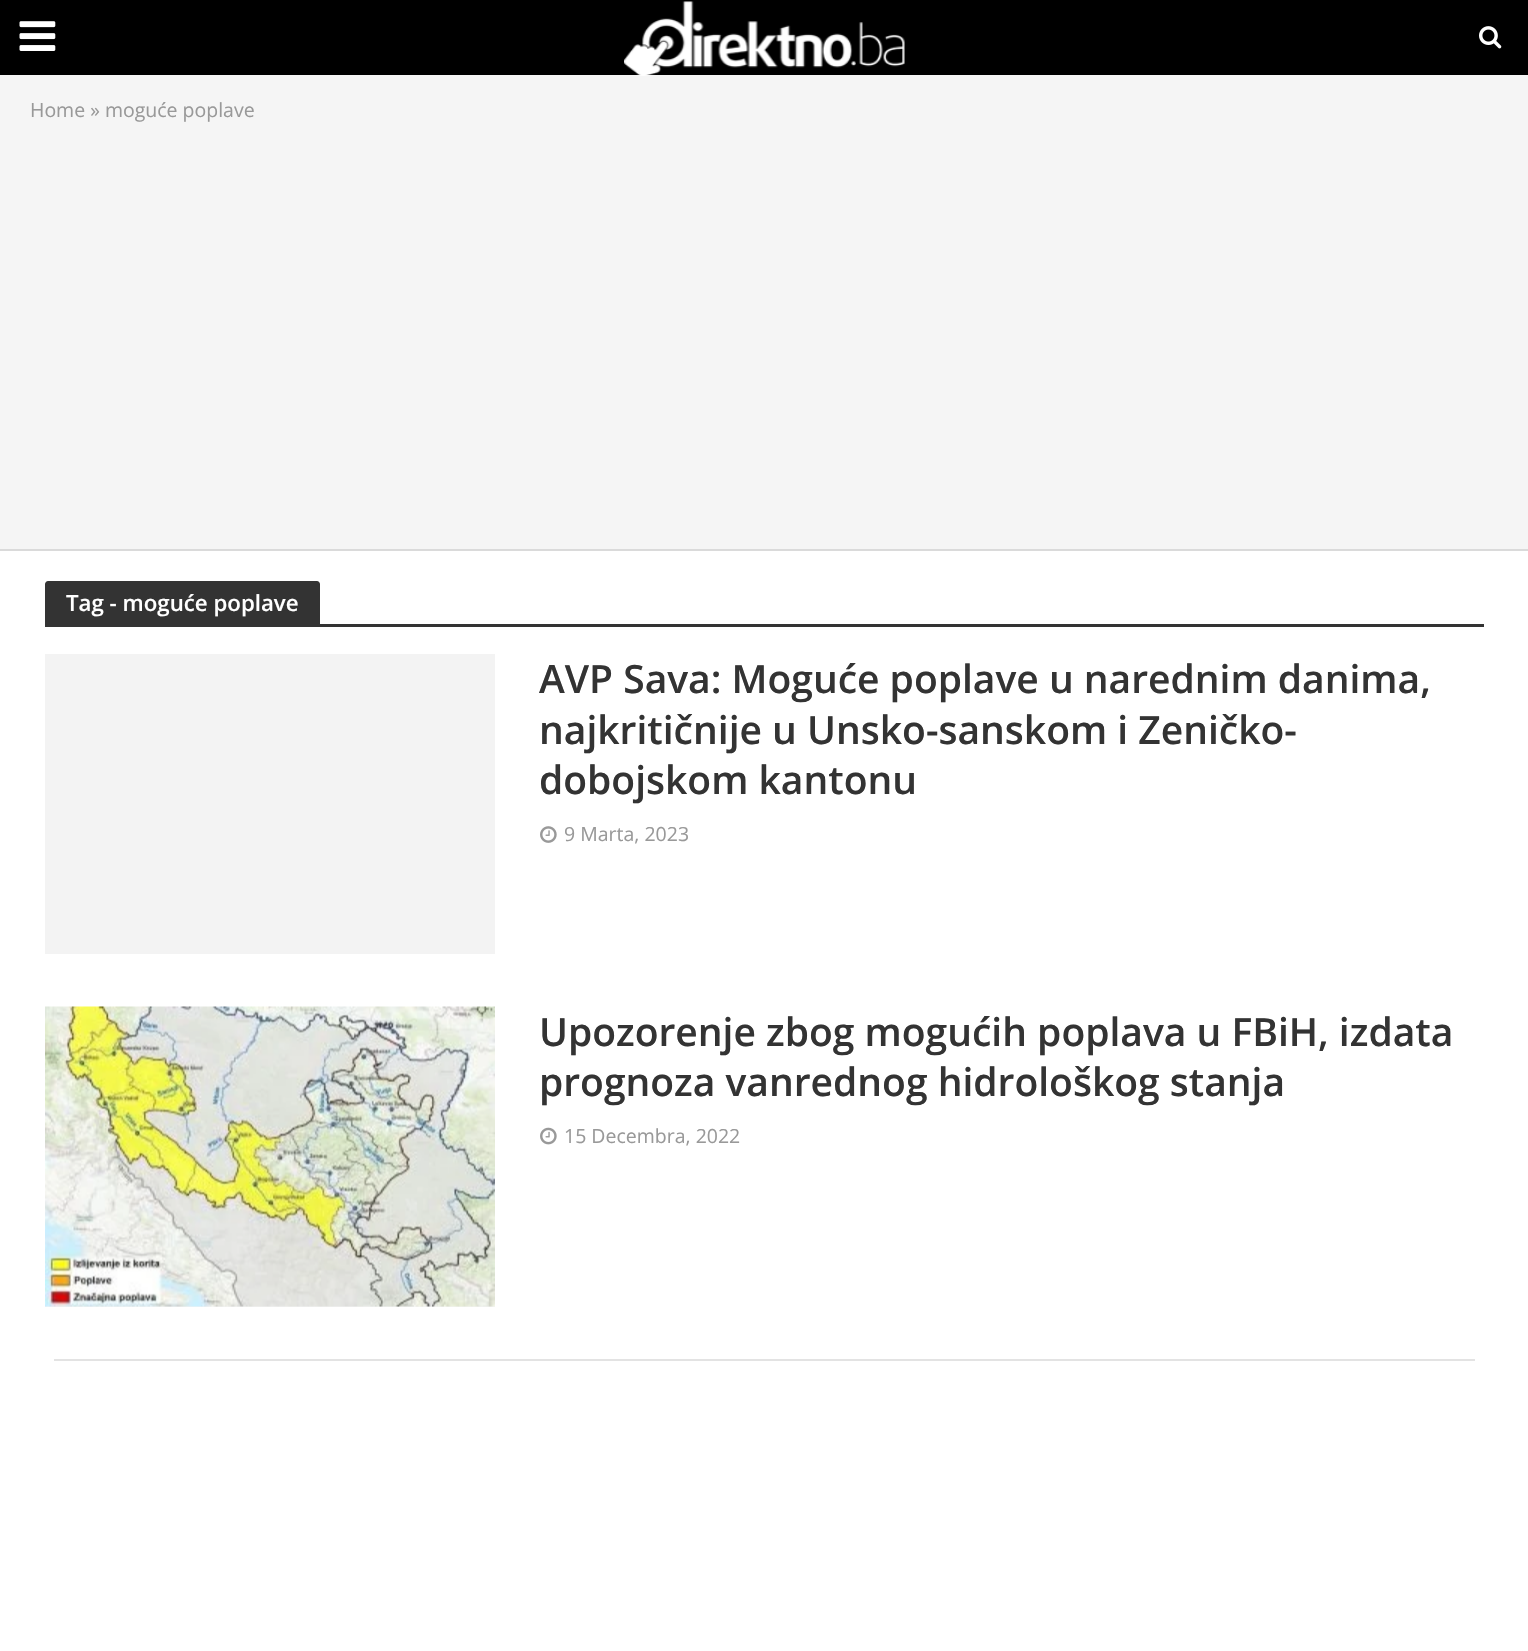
void draw(SkCanvas* canvas) {
    SkPaint paint;
    paint.setAntiAlias(true);
    auto face = [&](const char* family, int weight, float size, bool italic = false) {
        SkFontStyle style(weight, SkFontStyle::kNormal_Width,
            italic ? SkFontStyle::kItalic_Slant : SkFontStyle::kUpright_Slant);
        SkFont result(fontMgr->matchFamilyStyle(family, style), size);
        result.setSubpixel(true);
        return result;
    };
    auto write = [&](const char* s, float x, float y, const SkFont& font, SkColor color) {
        SkPaint ink(SkColor4f::FromColor(color));
        ink.setAntiAlias(true);
        canvas->drawString(s, x, y, font, ink);
    };
    auto block = [&](float x, float y, float w, float h, SkColor color) {
        SkPaint ink(SkColor4f::FromColor(color));
        ink.setAntiAlias(true);
        canvas->drawRect(SkRect::MakeXYWH(x, y, w, h), ink);
    };
    auto paste = [&](const char* path, float x, float y, float w, float h) {
        auto image = SkImages::DeferredFromEncodedData(SkData::MakeFromFileName(path));
        canvas->drawImageRect(image, SkRect::MakeXYWH(x, y, w, h), SkSamplingOptions());
    };
    canvas->clear(SK_ColorWHITE);
    block(0, 0, 1528, 75, SK_ColorBLACK);
    paste("pic1.png", 19, 21, 37, 30);
    block(0, 75, 1528, 474, SkColorSetRGB(245, 245, 245));
    paste("pic2.png", 624, 1, 281, 75);
    paste("pic3.png", 1479, 26, 23, 23);
    block(0, 549, 1528, 2, SkColorSetRGB(218, 218, 218));
    auto kFont1 = face("Open Sans", 400, 19.5f);
    write("Home » moguće poplave", 30, 117, kFont1, SkColorSetRGB(153, 153, 153));
    paint.setColor(SkColorSetRGB(51, 51, 51));
    canvas->drawPath(SkPathBuilder().moveTo(48, 581).lineTo(317, 581).cubicTo(318.5f, 581, 320, 582.5f, 320, 584).lineTo(320, 624).lineTo(45, 624).lineTo(45, 584).cubicTo(45, 582.5f, 46.5f, 581, 48, 581).close().detach(), paint);
    auto kFont2 = face("Open Sans", 600, 22.25f);
    write("Tag - moguće poplave", 66, 611, kFont2, SK_ColorWHITE);
    block(45, 624, 1439, 3, SkColorSetRGB(51, 51, 51));
    block(45, 654, 450, 300, SkColorSetRGB(243, 243, 243));
    auto kFont3 = face("Open Sans", 600, 39);
    write("AVP Sava: Moguće poplave u narednim danima,", 539, 693, kFont3, SkColorSetRGB(51, 51, 51));
    write("najkritičnije u Unsko-sanskom i Zeničko-", 539, 744, kFont3, SkColorSetRGB(51, 51, 51));
    write("dobojskom kantonu", 539, 794, kFont3, SkColorSetRGB(51, 51, 51));
    paste("pic4.png", 540, 826, 17, 17);
    write("9 Marta, 2023", 564, 841, kFont1, SkColorSetRGB(153, 153, 153));
    block(45, 1306, 450, 1, SkColorSetRGB(243, 243, 243));
    paste("pic5.png", 45, 1006, 450, 301);
    write("Upozorenje zbog mogućih poplava u FBiH, izdata", 539, 1046, kFont3, SkColorSetRGB(51, 51, 51));
    write("prognoza vanrednog hidrološkog stanja", 539, 1096, kFont3, SkColorSetRGB(51, 51, 51));
    paste("pic6.png", 540, 1127, 17, 18);
    write("15 Decembra, 2022", 564, 1143, kFont1, SkColorSetRGB(153, 153, 153));
    block(54, 1359, 1421, 2, SkColorSetRGB(227, 227, 227));
}
